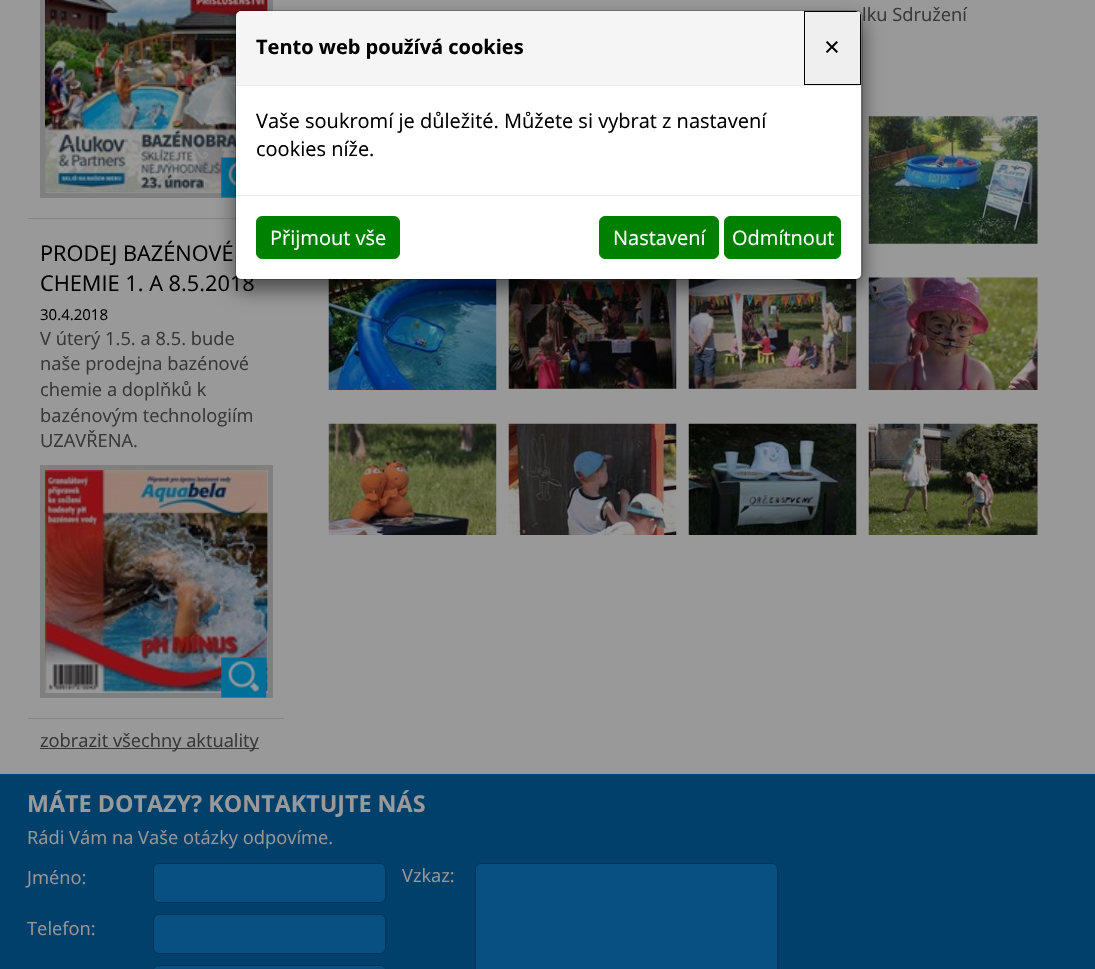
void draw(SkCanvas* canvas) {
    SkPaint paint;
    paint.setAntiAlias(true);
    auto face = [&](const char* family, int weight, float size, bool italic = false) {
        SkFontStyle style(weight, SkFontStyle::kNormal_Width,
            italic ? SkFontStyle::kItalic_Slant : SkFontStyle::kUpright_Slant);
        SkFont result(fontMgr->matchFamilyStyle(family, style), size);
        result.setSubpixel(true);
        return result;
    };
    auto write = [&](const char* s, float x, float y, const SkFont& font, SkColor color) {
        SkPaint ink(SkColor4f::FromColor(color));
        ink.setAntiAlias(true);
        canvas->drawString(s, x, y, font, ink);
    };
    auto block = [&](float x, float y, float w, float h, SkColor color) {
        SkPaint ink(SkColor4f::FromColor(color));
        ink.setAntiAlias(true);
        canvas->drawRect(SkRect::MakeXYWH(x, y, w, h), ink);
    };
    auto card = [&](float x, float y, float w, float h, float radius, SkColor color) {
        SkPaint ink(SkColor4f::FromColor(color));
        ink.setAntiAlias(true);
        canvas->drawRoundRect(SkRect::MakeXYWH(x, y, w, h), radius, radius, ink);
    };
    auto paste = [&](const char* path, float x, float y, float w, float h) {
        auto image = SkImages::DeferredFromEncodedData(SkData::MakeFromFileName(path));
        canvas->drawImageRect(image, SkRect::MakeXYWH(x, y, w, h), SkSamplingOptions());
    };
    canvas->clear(SkColorSetRGB(153, 153, 153));
    auto kFont1 = face("Open Sans", 400, 18.3f);
    write("lku Sdružení", 862, 21, kFont1, SkColorSetRGB(55, 55, 55));
    paste("pic1.png", 868, 116, 170, 128);
    paste("pic2.png", 328, 279, 169, 111);
    paste("pic3.png", 508, 279, 169, 110);
    paste("pic4.png", 688, 278, 169, 111);
    paste("pic5.png", 868, 277, 170, 113);
    paste("pic6.png", 328, 423, 169, 112);
    paste("pic7.png", 508, 423, 169, 112);
    paste("pic8.png", 688, 423, 169, 112);
    paste("pic9.png", 868, 423, 170, 112);
    block(28, 218, 208, 1, SkColorSetRGB(133, 133, 133));
    paint.setStyle(SkPaint::kStroke_Style);
    paint.setStrokeWidth(5);
    paint.setColor(SkColorSetRGB(127, 127, 127));
    canvas->drawRect(SkRect::MakeXYWH(42.5f, -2.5f, 228, 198), paint);
    paste("pic10.png", 45, 0, 223, 193);
    paste("pic11.png", 221, 157, 15, 41);
    block(28, 718, 256, 1, SkColorSetRGB(133, 133, 133));
    auto kFont2 = face("Open Sans", 400, 21.75f);
    write("PRODEJ BAZÉNOVÉ", 40, 261, kFont2, SK_ColorBLACK);
    write("CHEMIE 1. A 8.5.2018", 40, 291, kFont2, SK_ColorBLACK);
    auto kFont3 = face("Open Sans", 400, 15);
    write("30.4.2018", 40, 320, kFont3, SK_ColorBLACK);
    write("V úterý 1.5. a 8.5. bude", 40, 345, kFont1, SkColorSetRGB(55, 55, 55));
    write("naše prodejna bazénové", 40, 370, kFont1, SkColorSetRGB(55, 55, 55));
    write("chemie a doplňků k", 40, 396, kFont1, SkColorSetRGB(55, 55, 55));
    write("bazénovým technologiím", 40, 422, kFont1, SkColorSetRGB(55, 55, 55));
    write("UZAVŘENA.", 40, 447, kFont1, SkColorSetRGB(55, 55, 55));
    canvas->drawRect(SkRect::MakeXYWH(42.5f, 467.5f, 228, 228), paint);
    paste("pic12.png", 45, 470, 223, 223);
    paste("pic13.png", 221, 657, 46, 41);
    block(40, 748, 219, 1, SkColorSetRGB(55, 55, 55));
    write("zobrazit všechny aktuality", 40, 747, kFont1, SkColorSetRGB(55, 55, 55));
    block(0, 774, 1095, 195, SkColorSetRGB(1, 64, 107));
    auto kFont4 = face("Open Sans", 700, 23.3f);
    write("MÁTE DOTAZY? KONTAKTUJTE NÁS", 27, 812, kFont4, SkColorSetRGB(153, 153, 153));
    write("Rádi Vám na Vaše otázky odpovíme.", 27, 844, kFont1, SkColorSetRGB(153, 153, 153));
    write("Jméno:", 27, 884, kFont1, SkColorSetRGB(153, 153, 153));
    paint.setStyle(SkPaint::kFill_Style);
    paint.setColor(SkColorSetRGB(8, 80, 129));
    canvas->drawRoundRect(SkRect::MakeXYWH(153.5f, 863.5f, 232, 39), 5.5f, 5.5f, paint);
    paint.setStyle(SkPaint::kStroke_Style);
    paint.setStrokeWidth(1);
    paint.setColor(SkColorSetRGB(1, 51, 84));
    canvas->drawRoundRect(SkRect::MakeXYWH(153.5f, 863.5f, 232, 39), 5.5f, 5.5f, paint);
    write("Telefon:", 27, 935, kFont1, SkColorSetRGB(153, 153, 153));
    paint.setStyle(SkPaint::kFill_Style);
    paint.setColor(SkColorSetRGB(8, 80, 129));
    canvas->drawRoundRect(SkRect::MakeXYWH(153.5f, 914.5f, 232, 39), 5.5f, 5.5f, paint);
    paint.setStyle(SkPaint::kStroke_Style);
    paint.setColor(SkColorSetRGB(1, 51, 84));
    canvas->drawRoundRect(SkRect::MakeXYWH(153.5f, 914.5f, 232, 39), 5.5f, 5.5f, paint);
    paint.setStyle(SkPaint::kFill_Style);
    paint.setColor(SkColorSetRGB(8, 80, 129));
    canvas->drawRoundRect(SkRect::MakeXYWH(153.5f, 965.5f, 232, 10), 5.5f, 5.5f, paint);
    paint.setStyle(SkPaint::kStroke_Style);
    paint.setColor(SkColorSetRGB(1, 51, 84));
    canvas->drawRoundRect(SkRect::MakeXYWH(153.5f, 965.5f, 232, 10), 5.5f, 5.5f, paint);
    write("Vzkaz:", 402, 882, kFont1, SkColorSetRGB(153, 153, 153));
    paint.setStyle(SkPaint::kFill_Style);
    paint.setColor(SkColorSetRGB(8, 80, 129));
    canvas->drawRoundRect(SkRect::MakeXYWH(475.5f, 863.5f, 302, 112), 5.5f, 5.5f, paint);
    paint.setStyle(SkPaint::kStroke_Style);
    paint.setColor(SkColorSetRGB(1, 51, 84));
    canvas->drawRoundRect(SkRect::MakeXYWH(475.5f, 863.5f, 302, 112), 5.5f, 5.5f, paint);
    paint.setStyle(SkPaint::kFill_Style);
    paint.setColor(SkColorSetARGB(128, 0, 0, 0));
    paint.setMaskFilter(SkMaskFilter::MakeBlur(kNormal_SkBlurStyle, 10));
    canvas->drawRoundRect(SkRect::MakeXYWH(235, 20, 628, 270), 6, 6, paint);
    paint.setMaskFilter(nullptr);
    card(236, 11, 625, 268, 5, SK_ColorWHITE);
    paint.setStyle(SkPaint::kStroke_Style);
    paint.setColor(SkColorSetARGB(51, 0, 0, 0));
    canvas->drawRoundRect(SkRect::MakeXYWH(235.5f, 10.5f, 627, 269), 5.5f, 5.5f, paint);
    canvas->save();
    canvas->clipPath(SkPathBuilder().moveTo(241, 11).lineTo(856, 11).cubicTo(859, 11, 861, 13, 861, 16).lineTo(861, 274).cubicTo(861, 277, 859, 279, 856, 279).lineTo(241, 279).cubicTo(238, 279, 236, 277, 236, 274).lineTo(236, 16).cubicTo(236, 13, 238, 11, 241, 11).close().detach(), true);
    paint.setStyle(SkPaint::kFill_Style);
    paint.setColor(SkColorSetRGB(245, 245, 245));
    canvas->drawPath(SkPathBuilder().moveTo(242, 11).lineTo(855, 11).cubicTo(858.5f, 11, 861, 13.5f, 861, 17).lineTo(861, 86).lineTo(236, 86).lineTo(236, 17).cubicTo(236, 13.5f, 238.5f, 11, 242, 11).close().detach(), paint);
    canvas->restore();
    block(236, 85, 625, 1, SkColorSetRGB(233, 236, 239));
    auto kFont5 = face("Open Sans", 700, 20);
    write("Tento web používá cookies", 256, 54, kFont5, SK_ColorBLACK);
    paint.setColor(SkColorSetRGB(239, 239, 239));
    canvas->drawPath(SkPathBuilder().moveTo(804, 11).lineTo(856, 11).cubicTo(859, 11, 861, 13, 861, 16).lineTo(861, 85).lineTo(804, 85).close().detach(), paint);
    paint.setColor(SK_ColorBLACK);
    canvas->drawPath(SkPathBuilder().moveTo(804, 11).lineTo(804, 85).lineTo(861, 85).lineTo(861, 16).cubicTo(861, 15, 861, 14, 860, 13).lineTo(860, 84).lineTo(805, 84).lineTo(805, 12).lineTo(859, 12).lineTo(856, 11).close().detach(), paint);
    auto kFont6 = face("Liberation Sans", 400, 27);
    write("×", 824, 56, kFont6, SK_ColorBLACK);
    auto kFont7 = face("Open Sans", 400, 20);
    write("Vaše soukromí je důležité. Můžete si vybrat z nastavení", 256, 128, kFont7, SK_ColorBLACK);
    write("cookies níže.", 256, 156, kFont7, SK_ColorBLACK);
    block(236, 195, 625, 1, SkColorSetRGB(233, 236, 239));
    paint.setColor(SkColorSetRGB(0, 128, 0));
    canvas->drawRoundRect(SkRect::MakeXYWH(256.5f, 216.5f, 143, 42), 5.5f, 5.5f, paint);
    paint.setStyle(SkPaint::kStroke_Style);
    canvas->drawRoundRect(SkRect::MakeXYWH(256.5f, 216.5f, 143, 42), 5.5f, 5.5f, paint);
    write("Přijmout vše", 270, 245, kFont7, SK_ColorWHITE);
    paint.setStyle(SkPaint::kFill_Style);
    canvas->drawRoundRect(SkRect::MakeXYWH(599.5f, 216.5f, 119, 42), 5.5f, 5.5f, paint);
    paint.setStyle(SkPaint::kStroke_Style);
    canvas->drawRoundRect(SkRect::MakeXYWH(599.5f, 216.5f, 119, 42), 5.5f, 5.5f, paint);
    write("Nastavení", 613, 245, kFont7, SK_ColorWHITE);
    paint.setStyle(SkPaint::kFill_Style);
    canvas->drawRoundRect(SkRect::MakeXYWH(724.5f, 216.5f, 116, 42), 5.5f, 5.5f, paint);
    paint.setStyle(SkPaint::kStroke_Style);
    canvas->drawRoundRect(SkRect::MakeXYWH(724.5f, 216.5f, 116, 42), 5.5f, 5.5f, paint);
    write("Odmítnout", 732, 245, kFont7, SK_ColorWHITE);
}
